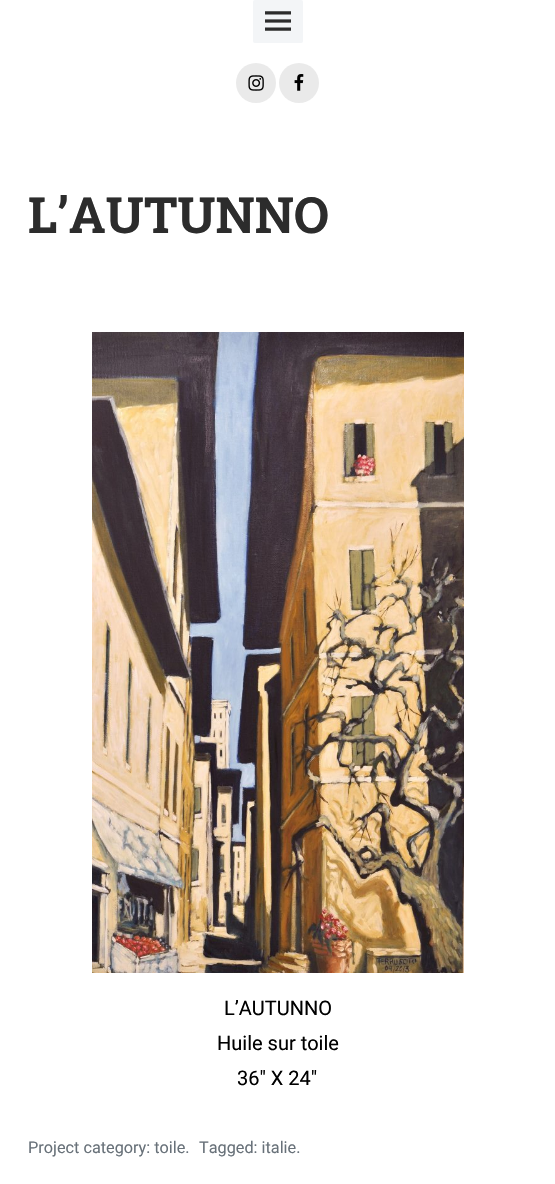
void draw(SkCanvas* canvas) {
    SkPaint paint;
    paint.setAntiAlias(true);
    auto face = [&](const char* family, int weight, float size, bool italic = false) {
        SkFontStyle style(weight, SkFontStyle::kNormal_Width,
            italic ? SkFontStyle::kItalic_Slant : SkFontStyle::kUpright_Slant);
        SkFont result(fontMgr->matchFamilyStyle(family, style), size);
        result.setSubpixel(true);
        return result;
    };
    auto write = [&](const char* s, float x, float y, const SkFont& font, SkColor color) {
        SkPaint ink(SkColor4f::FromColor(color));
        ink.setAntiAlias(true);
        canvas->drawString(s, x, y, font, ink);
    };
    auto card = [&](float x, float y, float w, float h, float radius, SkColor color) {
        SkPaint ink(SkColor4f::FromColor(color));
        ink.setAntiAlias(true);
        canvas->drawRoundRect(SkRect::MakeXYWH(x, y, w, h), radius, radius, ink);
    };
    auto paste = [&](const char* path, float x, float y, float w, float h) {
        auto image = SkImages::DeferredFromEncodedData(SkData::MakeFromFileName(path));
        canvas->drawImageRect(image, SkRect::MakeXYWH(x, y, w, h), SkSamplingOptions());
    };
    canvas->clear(SK_ColorWHITE);
    card(253, 0, 50, 43, 2, SkColorSetRGB(243, 245, 247));
    paste("pic1.png", 265, 11, 26, 20);
    paint.setColor(SkColorSetRGB(234, 234, 234));
    canvas->drawCircle(256, 83, 20, paint);
    paste("pic2.png", 248, 75, 16, 16);
    canvas->drawCircle(299, 83, 20, paint);
    paste("pic3.png", 294, 74, 10, 17);
    auto kFont1 = face("Roboto Slab", 700, 50);
    write("L’AUTUNNO", 28, 233, kFont1, SkColorSetRGB(44, 44, 44));
    paste("pic4.png", 92, 332, 372, 641);
    auto kFont2 = face("Roboto", 400, 20);
    write("L’AUTUNNO", 224, 1015, kFont2, SK_ColorBLACK);
    write("Huile sur toile", 217, 1050, kFont2, SK_ColorBLACK);
    write("36″ X 24″", 237, 1085, kFont2, SK_ColorBLACK);
    auto kFont3 = face("Roboto", 400, 16.25f);
    write("Project category: toile.", 28, 1153, kFont3, SkColorSetRGB(104, 113, 121));
    write("Tagged: italie.", 199, 1153, kFont3, SkColorSetRGB(104, 113, 121));
}
